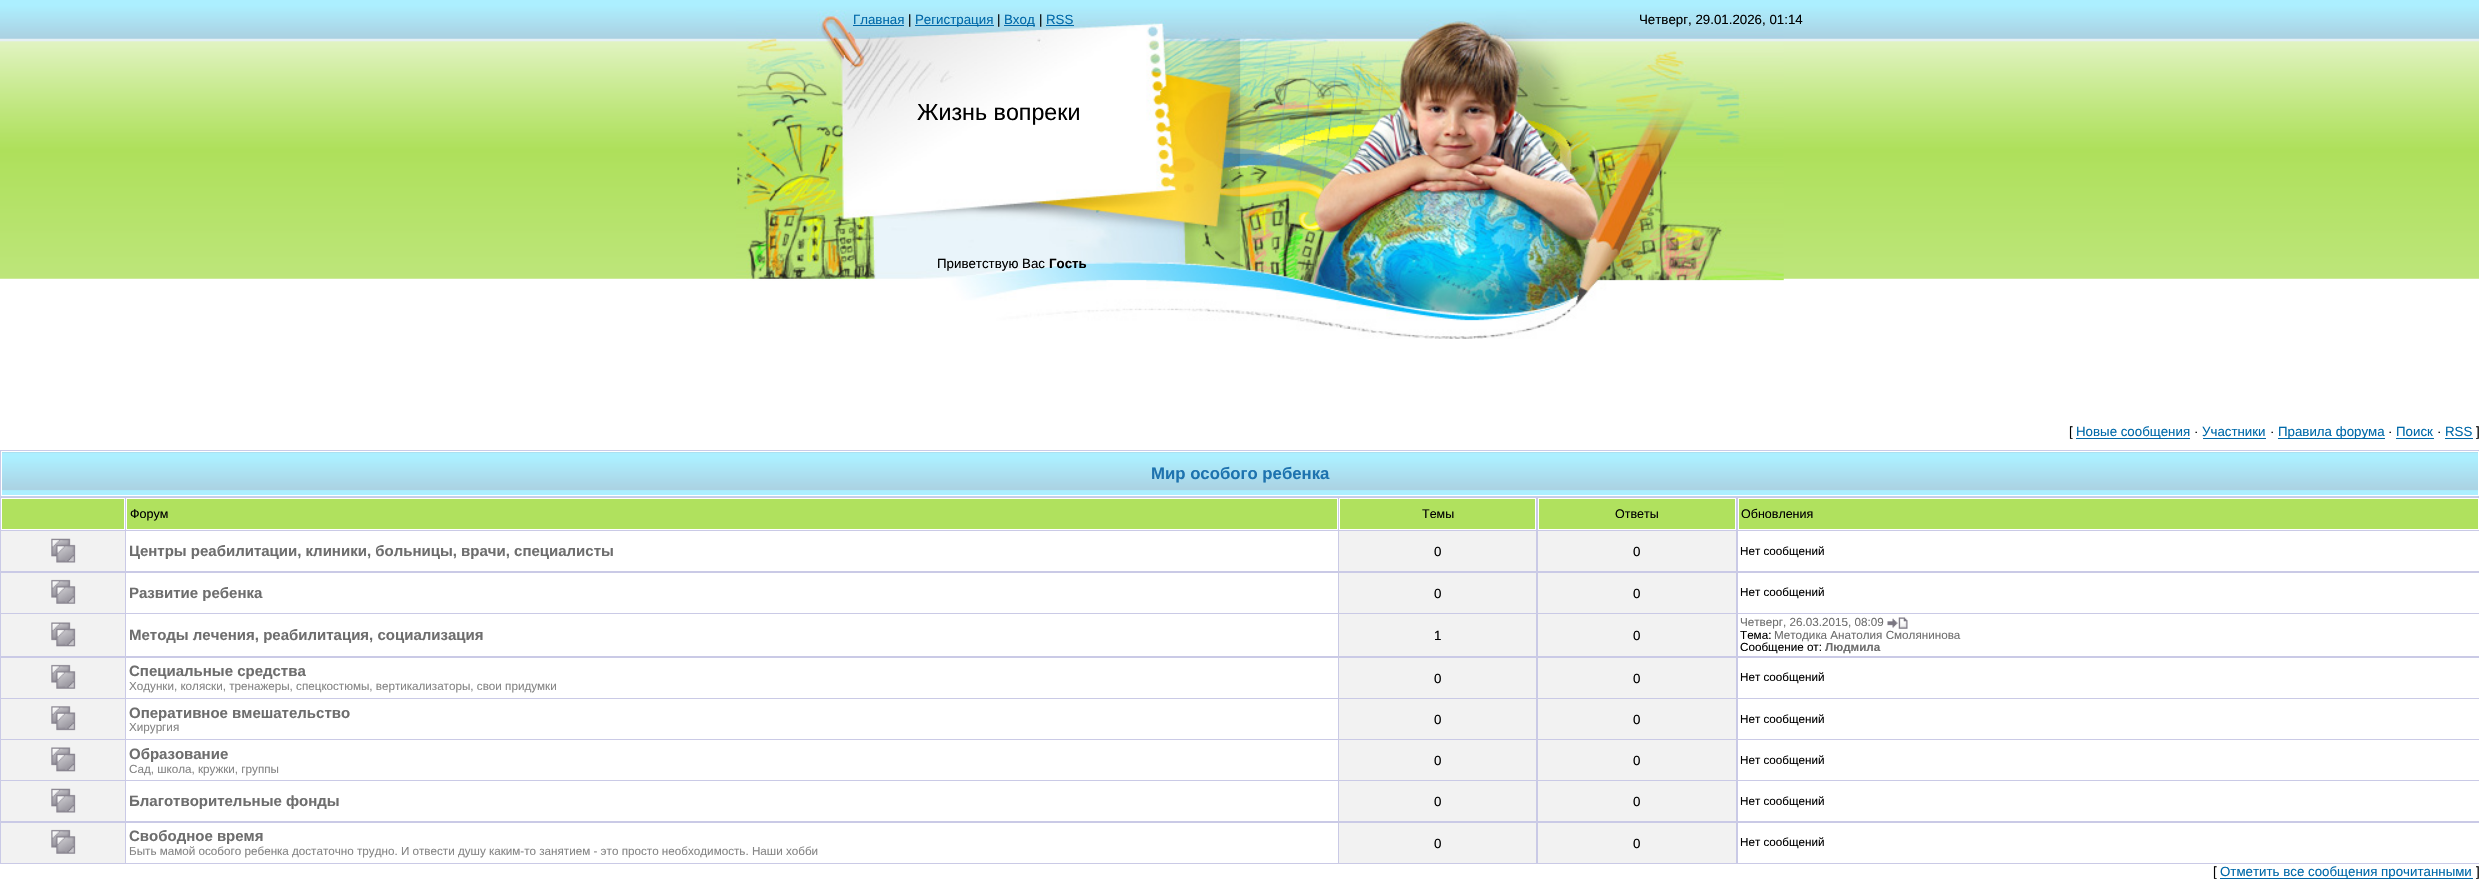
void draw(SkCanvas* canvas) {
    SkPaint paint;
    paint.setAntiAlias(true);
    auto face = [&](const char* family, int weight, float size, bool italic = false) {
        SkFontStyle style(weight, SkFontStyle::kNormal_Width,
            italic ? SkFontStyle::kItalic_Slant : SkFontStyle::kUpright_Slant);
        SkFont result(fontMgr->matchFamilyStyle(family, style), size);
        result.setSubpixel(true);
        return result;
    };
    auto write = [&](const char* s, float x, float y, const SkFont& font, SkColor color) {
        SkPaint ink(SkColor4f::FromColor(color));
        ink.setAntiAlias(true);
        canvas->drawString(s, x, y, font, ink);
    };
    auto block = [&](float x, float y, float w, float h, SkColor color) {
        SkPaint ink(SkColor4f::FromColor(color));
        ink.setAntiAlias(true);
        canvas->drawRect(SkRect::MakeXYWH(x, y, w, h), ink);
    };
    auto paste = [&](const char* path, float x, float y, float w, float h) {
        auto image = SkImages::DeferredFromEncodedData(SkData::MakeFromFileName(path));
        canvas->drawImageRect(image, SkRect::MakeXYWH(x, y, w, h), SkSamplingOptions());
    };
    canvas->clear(SK_ColorWHITE);
    paste("pic1.png", 0, 0, 2479, 279);
    paste("pic2.png", 736, 10, 1048, 329);
    auto kFont1 = face("Liberation Sans", 400, 13.3f);
    write("Главная", 853, 24, kFont1, SkColorSetRGB(0, 105, 169));
    block(853, 25, 51, 1, SkColorSetRGB(0, 105, 169));
    write("|", 908, 24, kFont1, SK_ColorBLACK);
    block(915, 25, 79, 1, SkColorSetRGB(0, 105, 169));
    write("Регистрация", 915, 24, kFont1, SkColorSetRGB(0, 105, 169));
    write("|", 997, 24, kFont1, SK_ColorBLACK);
    block(1004, 25, 31, 1, SkColorSetRGB(0, 105, 169));
    write("Вход", 1004, 24, kFont1, SkColorSetRGB(0, 105, 169));
    write("|", 1039, 24, kFont1, SK_ColorBLACK);
    write("RSS", 1046, 24, kFont1, SkColorSetRGB(0, 105, 169));
    block(1046, 25, 28, 1, SkColorSetRGB(0, 105, 169));
    write("Четверг, 29.01.2026, 01:14", 1639, 24, kFont1, SK_ColorBLACK);
    auto kFont2 = face("Liberation Sans", 400, 23.25f);
    write("Жизнь вопреки", 917, 120, kFont2, SK_ColorBLACK);
    write("Приветствую Вас", 937, 268, kFont1, SK_ColorBLACK);
    auto kFont3 = face("Liberation Sans", 700, 13.3f);
    write("Гость", 1049, 268, kFont3, SK_ColorBLACK);
    write("[", 2069, 436, kFont1, SK_ColorBLACK);
    block(2076, 438, 114, 1, SkColorSetRGB(0, 105, 169));
    write("Новые сообщения", 2076, 436, kFont1, SkColorSetRGB(0, 105, 169));
    write("·", 2194, 436, kFont1, SK_ColorBLACK);
    write("Участники", 2202, 436, kFont1, SkColorSetRGB(0, 105, 169));
    block(2203, 438, 63, 1, SkColorSetRGB(0, 105, 169));
    write("·", 2270, 436, kFont1, SK_ColorBLACK);
    block(2278, 438, 107, 1, SkColorSetRGB(0, 105, 169));
    write("Правила форума", 2278, 436, kFont1, SkColorSetRGB(0, 105, 169));
    write("·", 2388, 436, kFont1, SK_ColorBLACK);
    write("Поиск", 2396, 436, kFont1, SkColorSetRGB(0, 105, 169));
    block(2396, 438, 38, 1, SkColorSetRGB(0, 105, 169));
    write("·", 2437, 436, kFont1, SK_ColorBLACK);
    write("RSS", 2445, 436, kFont1, SkColorSetRGB(0, 105, 169));
    block(2445, 438, 28, 1, SkColorSetRGB(0, 105, 169));
    write("]", 2476, 436, kFont1, SK_ColorBLACK);
    block(0, 450, 2479, 414, SkColorSetRGB(202, 202, 230));
    paste("pic3.png", 1, 452, 2478, 45);
    paint.setStyle(SkPaint::kStroke_Style);
    paint.setStrokeWidth(1);
    paint.setColor(SK_ColorWHITE);
    canvas->drawRect(SkRect::MakeXYWH(1.5f, 451.5f, 2477, 44), paint);
    auto kFont4 = face("Liberation Sans", 700, 16.75f);
    write("Мир особого ребенка", 1151, 479, kFont4, SkColorSetRGB(30, 115, 175));
    paint.setStyle(SkPaint::kFill_Style);
    paint.setColor(SkColorSetRGB(176, 225, 94));
    canvas->drawRect(SkRect::MakeXYWH(1.5f, 498.5f, 123, 31), paint);
    paint.setStyle(SkPaint::kStroke_Style);
    paint.setColor(SK_ColorWHITE);
    canvas->drawRect(SkRect::MakeXYWH(1.5f, 498.5f, 123, 31), paint);
    paint.setStyle(SkPaint::kFill_Style);
    paint.setColor(SkColorSetRGB(176, 225, 94));
    canvas->drawRect(SkRect::MakeXYWH(126.5f, 498.5f, 1211, 31), paint);
    paint.setStyle(SkPaint::kStroke_Style);
    paint.setColor(SK_ColorWHITE);
    canvas->drawRect(SkRect::MakeXYWH(126.5f, 498.5f, 1211, 31), paint);
    auto kFont5 = face("Liberation Sans", 400, 12.5f);
    write("Форум", 130, 518, kFont5, SK_ColorBLACK);
    paint.setStyle(SkPaint::kFill_Style);
    paint.setColor(SkColorSetRGB(176, 225, 94));
    canvas->drawRect(SkRect::MakeXYWH(1339.5f, 498.5f, 196, 31), paint);
    paint.setStyle(SkPaint::kStroke_Style);
    paint.setColor(SK_ColorWHITE);
    canvas->drawRect(SkRect::MakeXYWH(1339.5f, 498.5f, 196, 31), paint);
    write("Темы", 1422, 518, kFont5, SK_ColorBLACK);
    paint.setStyle(SkPaint::kFill_Style);
    paint.setColor(SkColorSetRGB(176, 225, 94));
    canvas->drawRect(SkRect::MakeXYWH(1538.5f, 498.5f, 197, 31), paint);
    paint.setStyle(SkPaint::kStroke_Style);
    paint.setColor(SK_ColorWHITE);
    canvas->drawRect(SkRect::MakeXYWH(1538.5f, 498.5f, 197, 31), paint);
    write("Ответы", 1615, 518, kFont5, SK_ColorBLACK);
    paint.setStyle(SkPaint::kFill_Style);
    paint.setColor(SkColorSetRGB(176, 225, 94));
    canvas->drawRect(SkRect::MakeXYWH(1738.5f, 498.5f, 740, 31), paint);
    paint.setStyle(SkPaint::kStroke_Style);
    paint.setColor(SK_ColorWHITE);
    canvas->drawRect(SkRect::MakeXYWH(1738.5f, 498.5f, 740, 31), paint);
    write("Обновления", 1741, 518, kFont5, SK_ColorBLACK);
    block(1, 531, 124, 40, SkColorSetRGB(242, 242, 242));
    paste("pic4.png", 51, 538, 25, 25);
    block(126, 531, 1212, 40, SK_ColorWHITE);
    auto kFont6 = face("Liberation Sans", 700, 15);
    write("Центры реабилитации, клиники, больницы, врачи, специалисты", 129, 556, kFont6, SkColorSetRGB(110, 110, 110));
    block(1339, 531, 197, 40, SkColorSetRGB(242, 242, 242));
    write("0", 1434, 556, kFont1, SK_ColorBLACK);
    block(1538, 531, 198, 40, SkColorSetRGB(242, 242, 242));
    write("0", 1633, 556, kFont1, SK_ColorBLACK);
    block(1738, 531, 741, 40, SK_ColorWHITE);
    auto kFont7 = face("Liberation Sans", 400, 11.67f);
    write("Нет сообщений", 1740, 555, kFont7, SK_ColorBLACK);
    block(1, 573, 124, 40, SkColorSetRGB(242, 242, 242));
    paste("pic5.png", 51, 579, 25, 25);
    block(126, 573, 1212, 40, SK_ColorWHITE);
    write("Развитие ребенка", 129, 598, kFont6, SkColorSetRGB(110, 110, 110));
    block(1339, 573, 197, 40, SkColorSetRGB(242, 242, 242));
    write("0", 1434, 598, kFont1, SK_ColorBLACK);
    block(1538, 573, 198, 40, SkColorSetRGB(242, 242, 242));
    write("0", 1633, 598, kFont1, SK_ColorBLACK);
    block(1738, 573, 741, 40, SK_ColorWHITE);
    write("Нет сообщений", 1740, 596, kFont7, SK_ColorBLACK);
    block(1, 614, 124, 42, SkColorSetRGB(242, 242, 242));
    paste("pic6.png", 51, 622, 25, 25);
    block(126, 614, 1212, 42, SK_ColorWHITE);
    write("Методы лечения, реабилитация, социализация", 129, 640, kFont6, SkColorSetRGB(110, 110, 110));
    block(1339, 614, 197, 42, SkColorSetRGB(242, 242, 242));
    write("1", 1434, 640, kFont1, SK_ColorBLACK);
    block(1538, 614, 198, 42, SkColorSetRGB(242, 242, 242));
    write("0", 1633, 640, kFont1, SK_ColorBLACK);
    block(1738, 614, 741, 42, SK_ColorWHITE);
    write("Четверг, 26.03.2015, 08:09", 1740, 626, kFont7, SkColorSetRGB(110, 110, 110));
    paste("pic7.png", 1887, 617, 21, 12);
    write("Тема:", 1740, 639, kFont7, SK_ColorBLACK);
    write("Методика Анатолия Смолянинова", 1774, 639, kFont7, SkColorSetRGB(110, 110, 110));
    write("Сообщение от:", 1740, 651, kFont7, SK_ColorBLACK);
    auto kFont8 = face("Liberation Sans", 700, 11.67f);
    write("Людмила", 1825, 651, kFont8, SkColorSetRGB(110, 110, 110));
    block(1, 658, 124, 40, SkColorSetRGB(242, 242, 242));
    paste("pic8.png", 51, 664, 25, 25);
    block(126, 658, 1212, 40, SK_ColorWHITE);
    write("Специальные средства", 129, 676, kFont6, SkColorSetRGB(110, 110, 110));
    write("Ходунки, коляски, тренажеры, спецкостюмы, вертикализаторы, свои придумки", 129, 690, kFont7, SkColorSetRGB(133, 133, 133));
    block(1339, 658, 197, 40, SkColorSetRGB(242, 242, 242));
    write("0", 1434, 683, kFont1, SK_ColorBLACK);
    block(1538, 658, 198, 40, SkColorSetRGB(242, 242, 242));
    write("0", 1633, 683, kFont1, SK_ColorBLACK);
    block(1738, 658, 741, 40, SK_ColorWHITE);
    write("Нет сообщений", 1740, 681, kFont7, SK_ColorBLACK);
    block(1, 699, 124, 40, SkColorSetRGB(242, 242, 242));
    paste("pic9.png", 51, 706, 25, 25);
    block(126, 699, 1212, 40, SK_ColorWHITE);
    write("Оперативное вмешательство", 129, 718, kFont6, SkColorSetRGB(110, 110, 110));
    write("Хирургия", 129, 731, kFont7, SkColorSetRGB(133, 133, 133));
    block(1339, 699, 197, 40, SkColorSetRGB(242, 242, 242));
    write("0", 1434, 724, kFont1, SK_ColorBLACK);
    block(1538, 699, 198, 40, SkColorSetRGB(242, 242, 242));
    write("0", 1633, 724, kFont1, SK_ColorBLACK);
    block(1738, 699, 741, 40, SK_ColorWHITE);
    write("Нет сообщений", 1740, 723, kFont7, SK_ColorBLACK);
    block(1, 740, 124, 40, SkColorSetRGB(242, 242, 242));
    paste("pic6.png", 51, 747, 25, 25);
    block(126, 740, 1212, 40, SK_ColorWHITE);
    write("Образование", 129, 759, kFont6, SkColorSetRGB(110, 110, 110));
    write("Сад, школа, кружки, группы", 129, 773, kFont7, SkColorSetRGB(133, 133, 133));
    block(1339, 740, 197, 40, SkColorSetRGB(242, 242, 242));
    write("0", 1434, 765, kFont1, SK_ColorBLACK);
    block(1538, 740, 198, 40, SkColorSetRGB(242, 242, 242));
    write("0", 1633, 765, kFont1, SK_ColorBLACK);
    block(1738, 740, 741, 40, SK_ColorWHITE);
    write("Нет сообщений", 1740, 764, kFont7, SK_ColorBLACK);
    block(1, 781, 124, 40, SkColorSetRGB(242, 242, 242));
    paste("pic4.png", 51, 788, 25, 25);
    block(126, 781, 1212, 40, SK_ColorWHITE);
    write("Благотворительные фонды", 129, 806, kFont6, SkColorSetRGB(110, 110, 110));
    block(1339, 781, 197, 40, SkColorSetRGB(242, 242, 242));
    write("0", 1434, 806, kFont1, SK_ColorBLACK);
    block(1538, 781, 198, 40, SkColorSetRGB(242, 242, 242));
    write("0", 1633, 806, kFont1, SK_ColorBLACK);
    block(1738, 781, 741, 40, SK_ColorWHITE);
    write("Нет сообщений", 1740, 805, kFont7, SK_ColorBLACK);
    block(1, 823, 124, 40, SkColorSetRGB(242, 242, 242));
    paste("pic8.png", 51, 829, 25, 25);
    block(126, 823, 1212, 40, SK_ColorWHITE);
    write("Свободное время", 129, 841, kFont6, SkColorSetRGB(110, 110, 110));
    write("Быть мамой особого ребенка достаточно трудно. И отвести душу каким-то занятием - это просто необходимость. Наши хобби", 129, 855, kFont7, SkColorSetRGB(133, 133, 133));
    block(1339, 823, 197, 40, SkColorSetRGB(242, 242, 242));
    write("0", 1434, 848, kFont1, SK_ColorBLACK);
    block(1538, 823, 198, 40, SkColorSetRGB(242, 242, 242));
    write("0", 1633, 848, kFont1, SK_ColorBLACK);
    block(1738, 823, 741, 40, SK_ColorWHITE);
    write("Нет сообщений", 1740, 846, kFont7, SK_ColorBLACK);
    write("[", 2213, 876, kFont1, SK_ColorBLACK);
    block(2220, 878, 253, 1, SkColorSetRGB(0, 105, 169));
    write("Отметить все сообщения прочитанными", 2220, 876, kFont1, SkColorSetRGB(0, 105, 169));
    write("]", 2476, 876, kFont1, SK_ColorBLACK);
}
